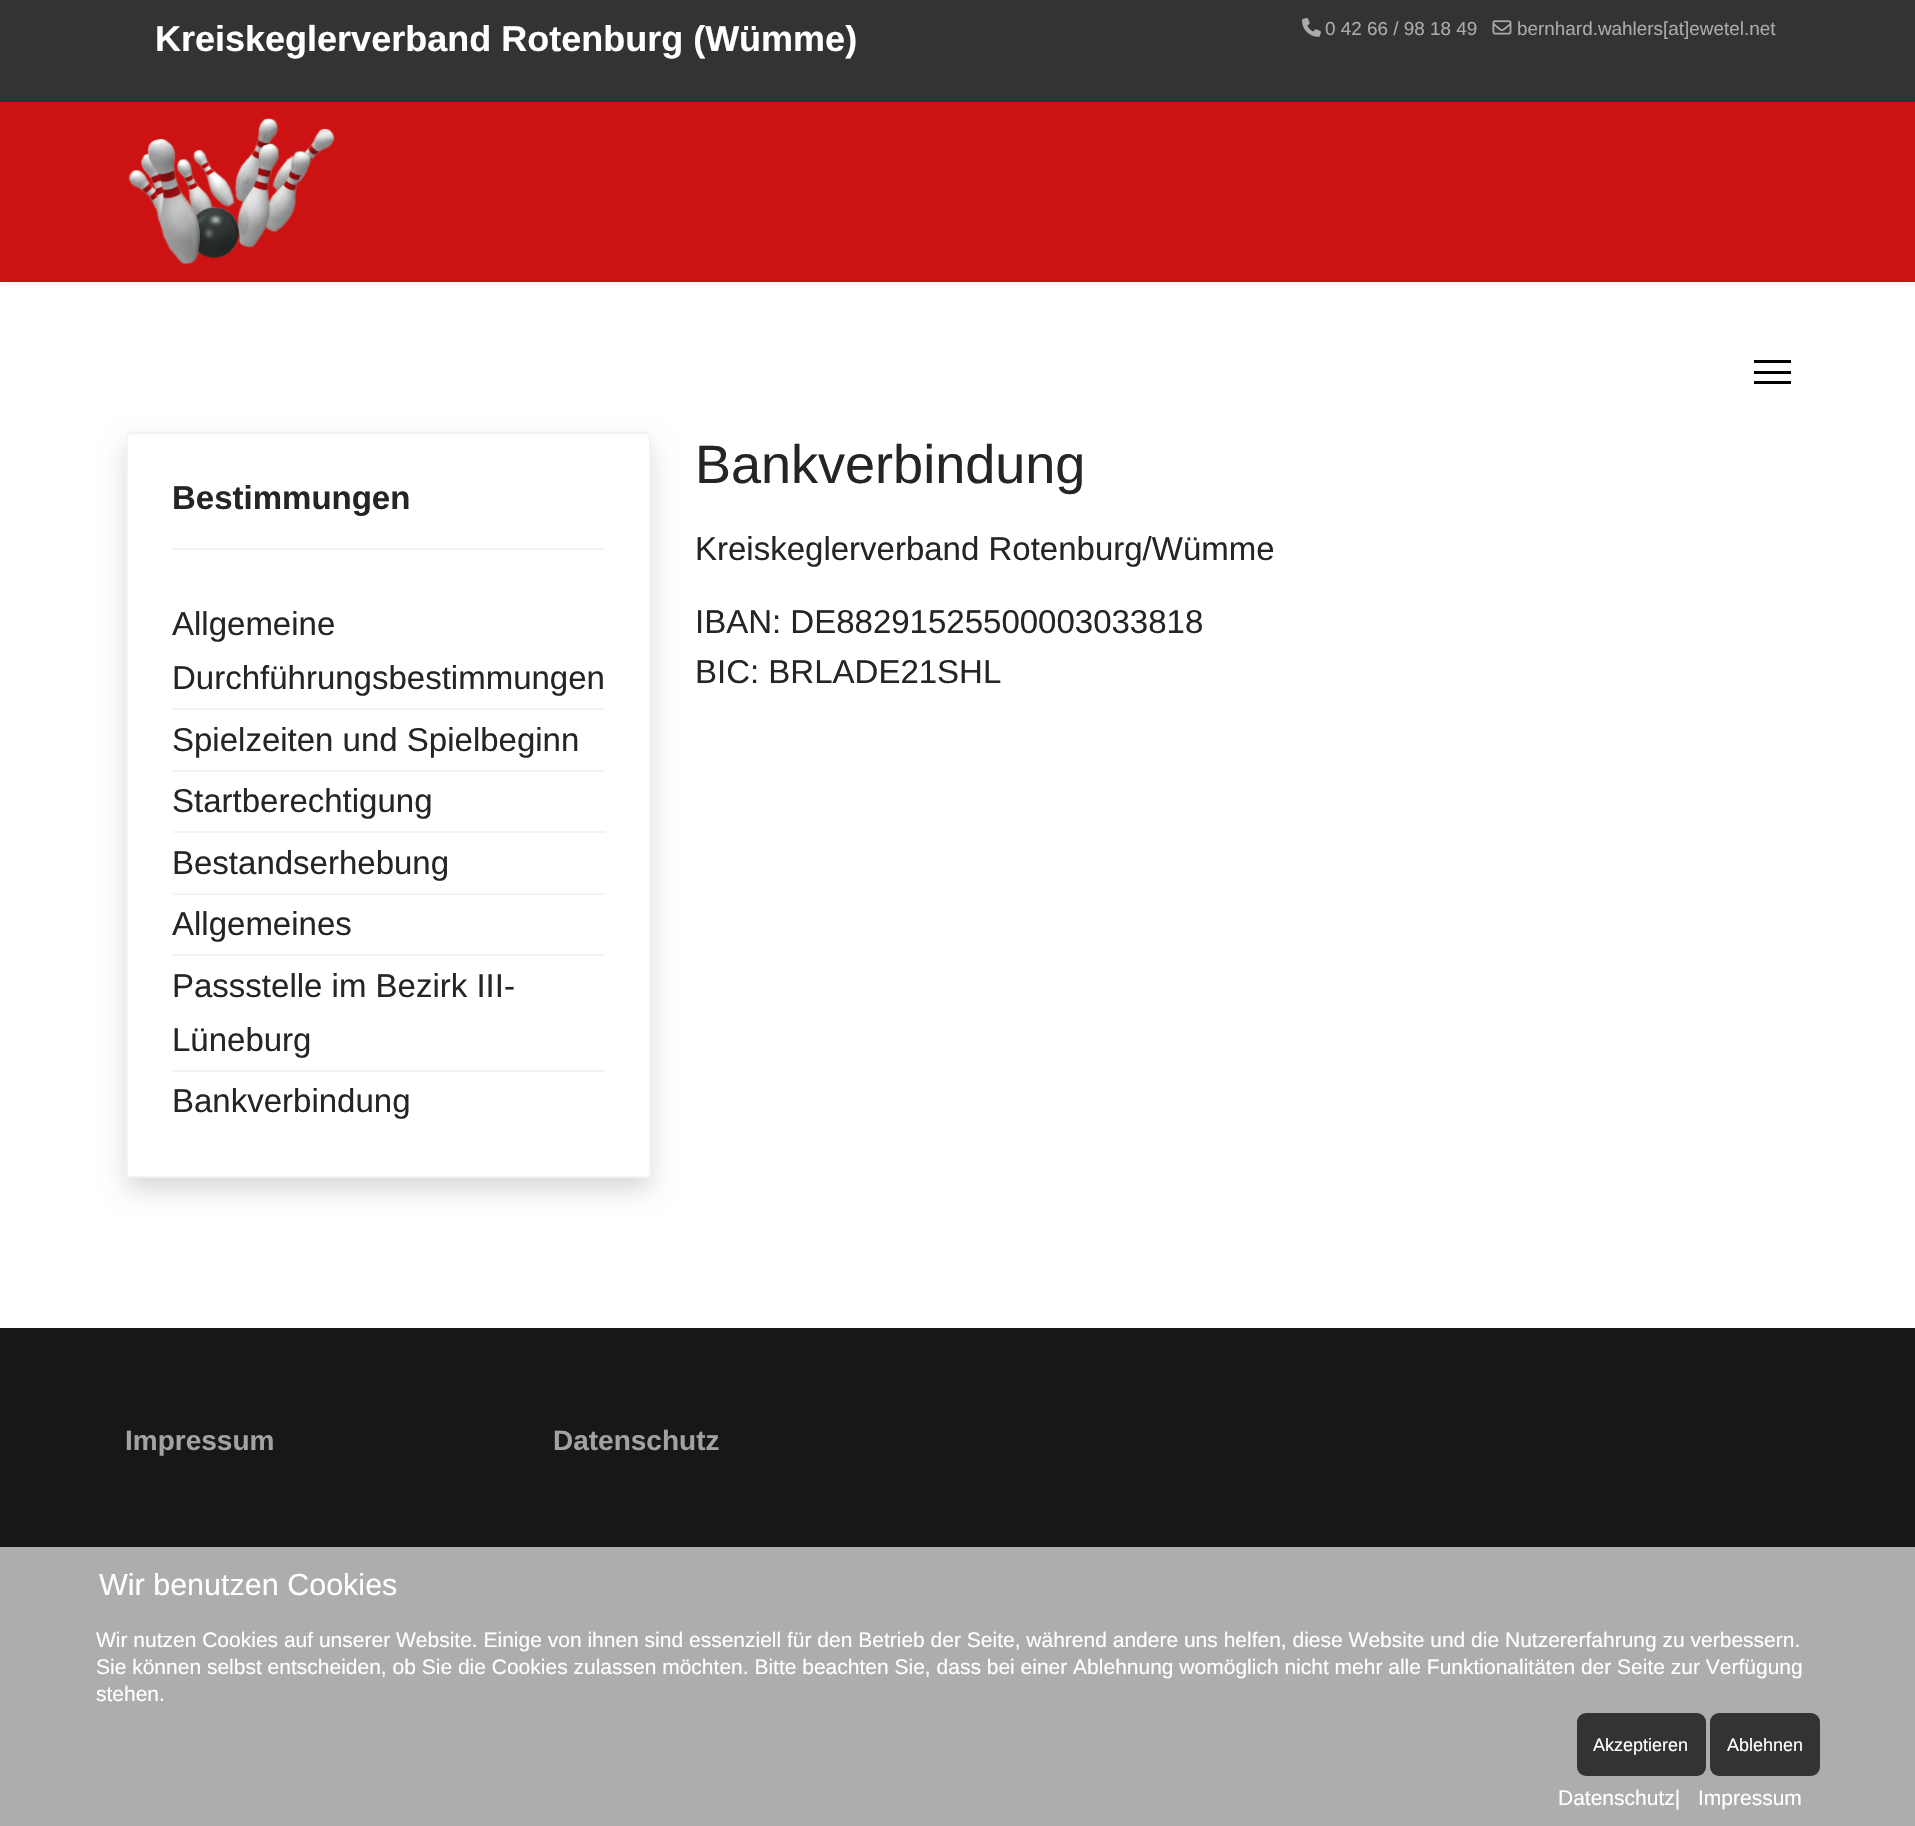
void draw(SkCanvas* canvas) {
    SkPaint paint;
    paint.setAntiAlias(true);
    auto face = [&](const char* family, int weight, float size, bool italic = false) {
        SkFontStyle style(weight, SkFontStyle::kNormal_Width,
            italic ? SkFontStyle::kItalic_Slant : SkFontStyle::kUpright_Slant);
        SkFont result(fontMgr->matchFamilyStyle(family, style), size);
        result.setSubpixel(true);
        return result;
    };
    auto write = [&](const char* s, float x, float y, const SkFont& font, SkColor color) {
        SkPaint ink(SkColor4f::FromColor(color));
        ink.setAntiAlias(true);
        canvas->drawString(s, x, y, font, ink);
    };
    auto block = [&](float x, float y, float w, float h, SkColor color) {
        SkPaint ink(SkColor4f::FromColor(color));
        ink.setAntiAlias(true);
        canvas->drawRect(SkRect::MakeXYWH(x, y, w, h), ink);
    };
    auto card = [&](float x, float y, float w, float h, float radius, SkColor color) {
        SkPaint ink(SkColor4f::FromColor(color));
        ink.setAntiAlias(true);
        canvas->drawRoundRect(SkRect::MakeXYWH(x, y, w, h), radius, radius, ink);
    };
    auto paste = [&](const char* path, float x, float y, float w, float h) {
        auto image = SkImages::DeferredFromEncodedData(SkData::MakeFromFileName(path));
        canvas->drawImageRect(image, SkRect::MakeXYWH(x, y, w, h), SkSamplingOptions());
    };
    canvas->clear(SK_ColorWHITE);
    block(0, 0, 1915, 102, SkColorSetRGB(51, 51, 51));
    auto kFont1 = face("Liberation Sans", 700, 36);
    write("Kreiskeglerverband Rotenburg (Wümme)", 155, 51, kFont1, SK_ColorWHITE);
    paste("pic1.png", 1302, 18, 19, 19);
    auto kFont2 = face("Liberation Sans", 400, 18.9f);
    write("0 42 66 / 98 18 49", 1325, 35, kFont2, SkColorSetRGB(170, 170, 170));
    paste("pic2.png", 1492, 20, 20, 15);
    write("bernhard.wahlers[at]ewetel.net", 1517, 35, kFont2, SkColorSetRGB(170, 170, 170));
    paint.setColor(SkColorSetARGB(26, 0, 0, 0));
    paint.setMaskFilter(SkMaskFilter::MakeBlur(kNormal_SkBlurStyle, 3));
    canvas->drawRect(SkRect::MakeXYWH(0, 102, 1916, 180), paint);
    paint.setMaskFilter(nullptr);
    block(0, 102, 1915, 180, SkColorSetRGB(204, 18, 18));
    paste("pic3.png", 128, 118, 207, 147);
    block(1754, 360, 37, 3, SK_ColorBLACK);
    block(1754, 371, 37, 3, SK_ColorBLACK);
    block(1754, 381, 37, 3, SK_ColorBLACK);
    canvas->save();
    canvas->clipPath(SkPathBuilder(SkPathFillType::kEvenOdd).moveTo(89, 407).lineTo(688, 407).lineTo(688, 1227).lineTo(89, 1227).close().moveTo(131, 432).lineTo(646, 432).cubicTo(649, 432, 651, 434, 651, 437).lineTo(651, 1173).cubicTo(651, 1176, 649, 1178, 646, 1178).lineTo(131, 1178).cubicTo(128, 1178, 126, 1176, 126, 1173).lineTo(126, 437).cubicTo(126, 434, 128, 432, 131, 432).close().detach(), true);
    paint.setColor(SkColorSetARGB(38, 0, 0, 0));
    paint.setMaskFilter(SkMaskFilter::MakeBlur(kNormal_SkBlurStyle, 12));
    canvas->drawRoundRect(SkRect::MakeXYWH(126, 444, 525, 746), 5, 5, paint);
    paint.setMaskFilter(nullptr);
    canvas->restore();
    paint.setStyle(SkPaint::kStroke_Style);
    paint.setStrokeWidth(2);
    paint.setColor(SkColorSetRGB(243, 243, 243));
    canvas->drawRoundRect(SkRect::MakeXYWH(127, 433, 523, 744), 4, 4, paint);
    block(173, 548, 432, 2, SkColorSetRGB(243, 243, 243));
    auto kFont3 = face("Liberation Sans", 700, 33);
    write("Bestimmungen", 172, 509, kFont3, SkColorSetRGB(37, 37, 37));
    block(173, 708, 432, 2, SkColorSetRGB(243, 243, 243));
    auto kFont4 = face("Liberation Sans", 400, 33);
    write("Allgemeine", 172, 635, kFont4, SkColorSetRGB(37, 37, 37));
    write("Durchführungsbestimmungen", 172, 689, kFont4, SkColorSetRGB(37, 37, 37));
    block(173, 770, 432, 2, SkColorSetRGB(243, 243, 243));
    write("Spielzeiten und Spielbeginn", 172, 751, kFont4, SkColorSetRGB(37, 37, 37));
    block(173, 831, 432, 2, SkColorSetRGB(243, 243, 243));
    write("Startberechtigung", 172, 812, kFont4, SkColorSetRGB(37, 37, 37));
    block(173, 893, 432, 2, SkColorSetRGB(243, 243, 243));
    write("Bestandserhebung", 172, 874, kFont4, SkColorSetRGB(37, 37, 37));
    block(173, 954, 432, 2, SkColorSetRGB(243, 243, 243));
    write("Allgemeines", 172, 935, kFont4, SkColorSetRGB(37, 37, 37));
    block(173, 1070, 432, 2, SkColorSetRGB(243, 243, 243));
    write("Passstelle im Bezirk III-", 172, 997, kFont4, SkColorSetRGB(37, 37, 37));
    write("Lüneburg", 172, 1051, kFont4, SkColorSetRGB(37, 37, 37));
    write("Bankverbindung", 172, 1112, kFont4, SkColorSetRGB(37, 37, 37));
    auto kFont5 = face("Liberation Sans", 400, 54);
    write("Bankverbindung", 695, 483, kFont5, SkColorSetRGB(37, 37, 37));
    write("Kreiskeglerverband Rotenburg/Wümme", 695, 560, kFont4, SkColorSetRGB(37, 37, 37));
    write("IBAN: DE88291525500003033818", 695, 633, kFont4, SkColorSetRGB(37, 37, 37));
    write("BIC: BRLADE21SHL", 695, 683, kFont4, SkColorSetRGB(37, 37, 37));
    block(0, 1328, 1915, 219, SkColorSetRGB(23, 23, 23));
    auto kFont6 = face("Liberation Sans", 700, 28);
    write("Impressum", 125, 1450, kFont6, SkColorSetRGB(162, 162, 162));
    write("Datenschutz", 553, 1450, kFont6, SkColorSetRGB(162, 162, 162));
    block(0, 1547, 1915, 279, SkColorSetRGB(173, 173, 173));
    auto kFont7 = face("Liberation Sans", 400, 30.5f);
    write("Wir benutzen Cookies", 99, 1595, kFont7, SK_ColorWHITE);
    auto kFont8 = face("Liberation Sans", 400, 21);
    write("Wir nutzen Cookies auf unserer Website. Einige von ihnen sind essenziell für den Betrieb der Seite, während andere uns helfen, diese Website und die Nutzererfahrung zu verbessern.", 96, 1647, kFont8, SK_ColorWHITE);
    write("Sie können selbst entscheiden, ob Sie die Cookies zulassen möchten. Bitte beachten Sie, dass bei einer Ablehnung womöglich nicht mehr alle Funktionalitäten der Seite zur Verfügung", 96, 1674, kFont8, SK_ColorWHITE);
    write("stehen.", 96, 1701, kFont8, SK_ColorWHITE);
    card(1577, 1713, 129, 63, 9, SkColorSetRGB(51, 51, 51));
    auto kFont9 = face("Liberation Sans", 400, 18);
    write("Akzeptieren", 1593, 1751, kFont9, SK_ColorWHITE);
    card(1710, 1713, 110, 63, 9, SkColorSetRGB(51, 51, 51));
    write("Ablehnen", 1727, 1751, kFont9, SK_ColorWHITE);
    write("Datenschutz|", 1558, 1805, kFont8, SK_ColorWHITE);
    write("Impressum", 1698, 1805, kFont8, SK_ColorWHITE);
}
